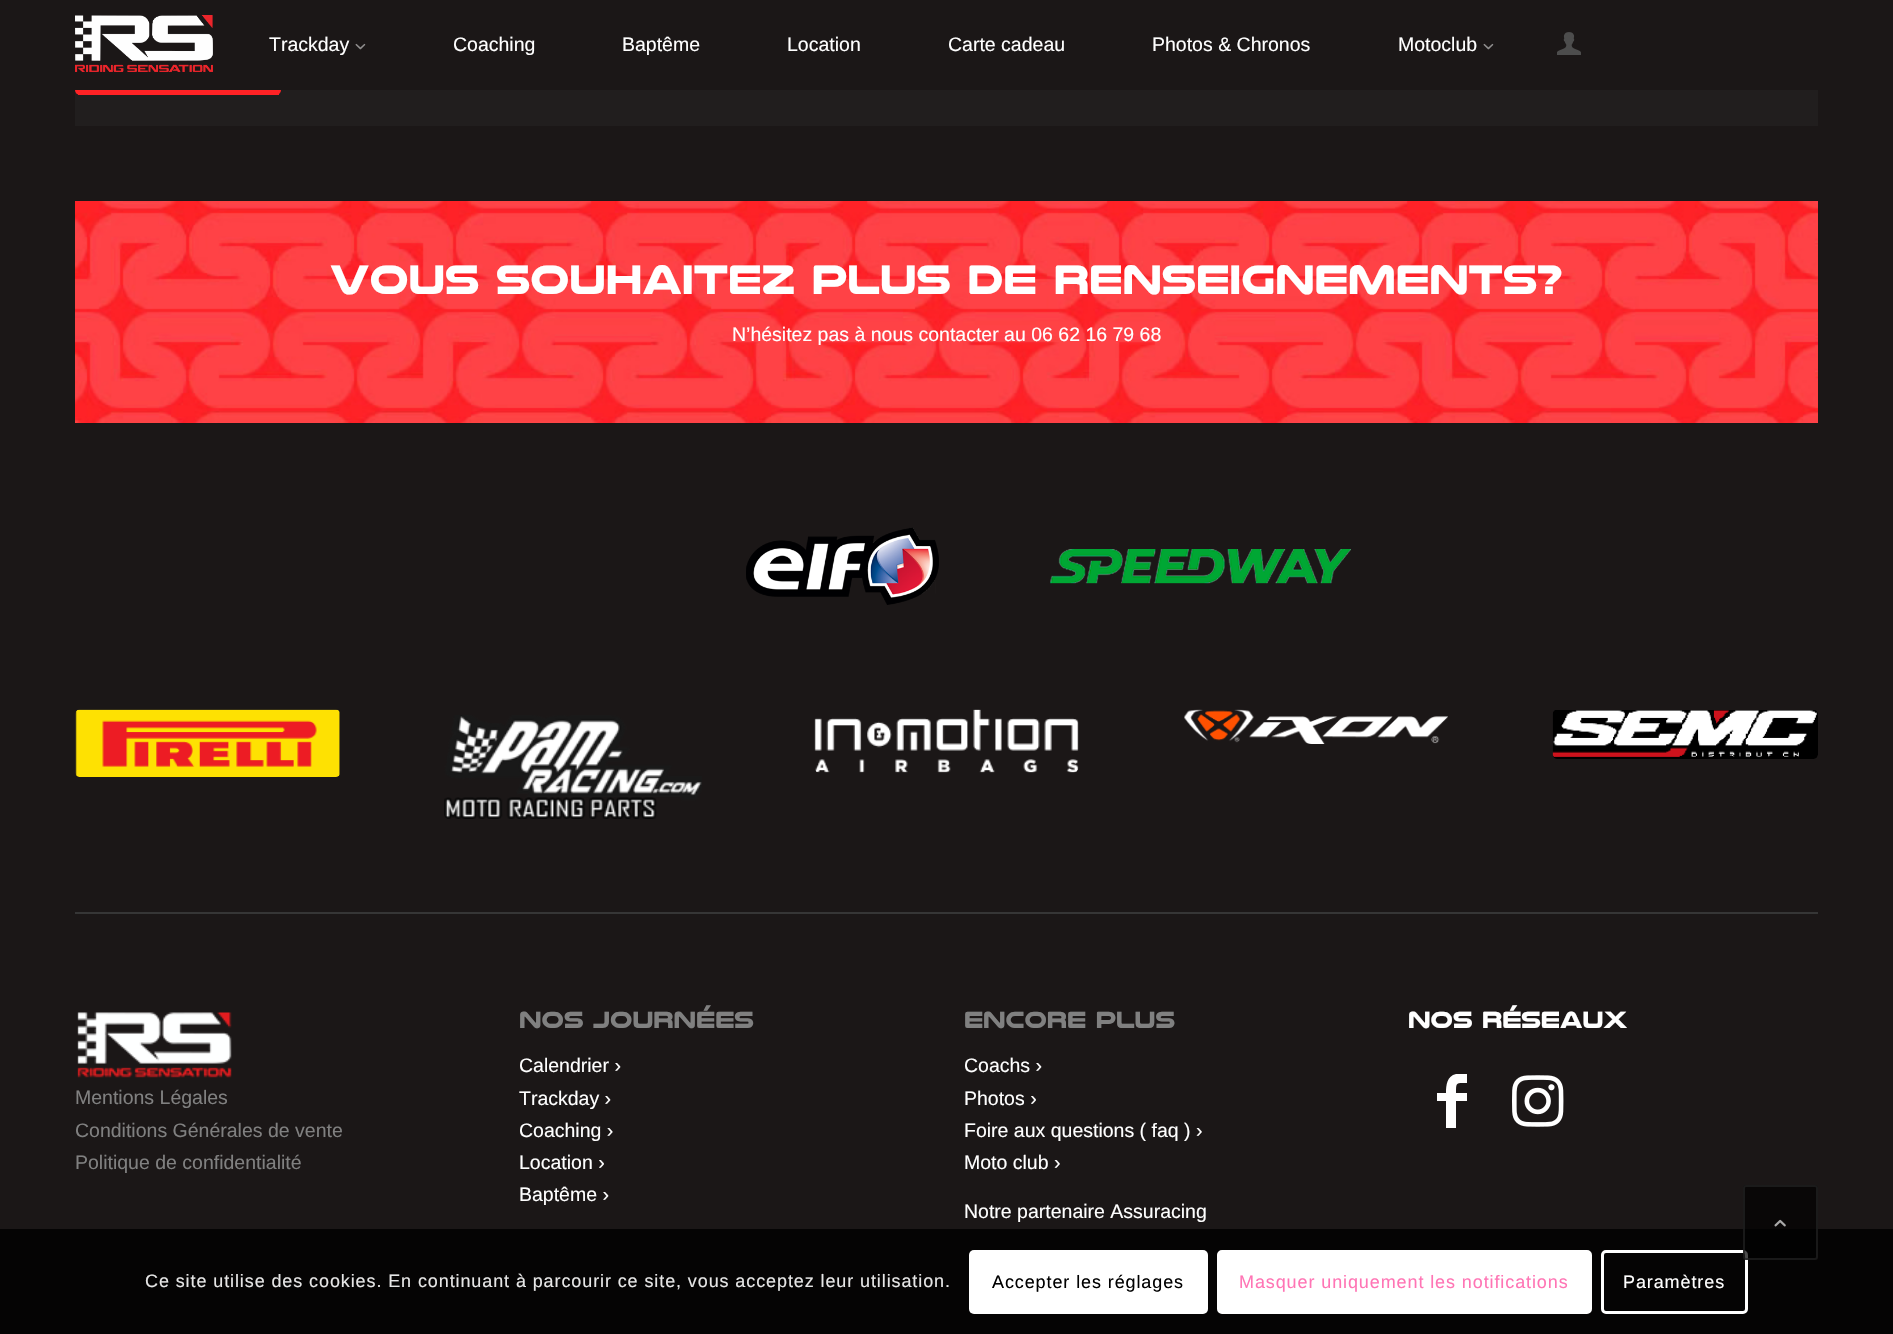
void draw(SkCanvas* canvas) {
    SkPaint paint;
    paint.setAntiAlias(true);
    auto face = [&](const char* family, int weight, float size, bool italic = false) {
        SkFontStyle style(weight, SkFontStyle::kNormal_Width,
            italic ? SkFontStyle::kItalic_Slant : SkFontStyle::kUpright_Slant);
        SkFont result(fontMgr->matchFamilyStyle(family, style), size);
        result.setSubpixel(true);
        return result;
    };
    auto write = [&](const char* s, float x, float y, const SkFont& font, SkColor color) {
        SkPaint ink(SkColor4f::FromColor(color));
        ink.setAntiAlias(true);
        canvas->drawString(s, x, y, font, ink);
    };
    auto writeSpaced = [&](const char* s, float x, float y, const SkFont& font, const SkPaint& ink, float letter, float word) {
        std::vector<SkGlyphID> glyphs(font.countText(s, strlen(s), SkTextEncoding::kUTF8));
        std::vector<float> xs(glyphs.size());
        font.textToGlyphs(s, strlen(s), SkTextEncoding::kUTF8, glyphs);
        font.getXPos(glyphs, xs, x);
        float extra = 0;
        for (size_t i = 0; i < glyphs.size(); i++) {
            xs[i] += extra;
            extra += letter + word * (glyphs[i] == font.unicharToGlyph(' '));
        }
        canvas->drawTextBlob(SkTextBlob::MakeFromPosHGlyphs(glyphs, xs, y, font), 0, 0, ink);
    };
    auto block = [&](float x, float y, float w, float h, SkColor color) {
        SkPaint ink(SkColor4f::FromColor(color));
        ink.setAntiAlias(true);
        canvas->drawRect(SkRect::MakeXYWH(x, y, w, h), ink);
    };
    auto card = [&](float x, float y, float w, float h, float radius, SkColor color) {
        SkPaint ink(SkColor4f::FromColor(color));
        ink.setAntiAlias(true);
        canvas->drawRoundRect(SkRect::MakeXYWH(x, y, w, h), radius, radius, ink);
    };
    auto paste = [&](const char* path, float x, float y, float w, float h) {
        auto image = SkImages::DeferredFromEncodedData(SkData::MakeFromFileName(path));
        canvas->drawImageRect(image, SkRect::MakeXYWH(x, y, w, h), SkSamplingOptions());
    };
    canvas->clear(SkColorSetRGB(27, 23, 23));
    block(75, 90, 1743, 36, SkColorSetRGB(33, 30, 30));
    card(75, 45, 206, 50, 5, SkColorSetRGB(255, 34, 37));
    block(75, 45, 206, 45, SkColorSetRGB(27, 23, 23));
    paste("pic1.png", 75, 15, 138, 57);
    auto kFont1 = face("Liberation Sans", 400, 19.5f);
    write("Trackday", 269, 51, kFont1, SK_ColorWHITE);
    paste("pic2.png", 355, 43, 11, 7);
    write("Coaching", 453, 51, kFont1, SK_ColorWHITE);
    write("Baptême", 622, 51, kFont1, SK_ColorWHITE);
    write("Location", 787, 51, kFont1, SK_ColorWHITE);
    write("Carte cadeau", 948, 51, kFont1, SK_ColorWHITE);
    write("Photos & Chronos", 1152, 51, kFont1, SK_ColorWHITE);
    write("Motoclub", 1398, 51, kFont1, SK_ColorWHITE);
    paste("pic2.png", 1483, 43, 11, 7);
    paste("pic3.png", 1557, 32, 24, 23);
    block(78, 94, 201, 1, SkColorSetRGB(255, 34, 37));
    paste("pic4.png", 75, 201, 1743, 222);
    auto kFont2 = face("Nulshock", 700, 42);
    write("Vous souhaitez plus de renseignements?", 330, 294, kFont2, SK_ColorWHITE);
    write("N’hésitez pas à nous contacter au 06 62 16 79 68", 732, 341, kFont1, SK_ColorWHITE);
    paste("pic5.png", 746, 527, 193, 78);
    paste("pic6.png", 1050, 549, 301, 35);
    paste("pic7.png", 75, 709, 265, 68);
    paste("pic8.png", 444, 715, 258, 104);
    paste("pic9.png", 814, 709, 265, 64);
    paste("pic10.png", 1184, 709, 264, 35);
    paste("pic11.png", 1552, 710, 266, 49);
    block(75, 912, 1743, 2, SkColorSetRGB(54, 54, 54));
    paste("pic12.png", 77, 1012, 155, 66);
    write("Mentions Légales", 75, 1104, kFont1, SkColorSetRGB(128, 128, 128));
    write("Conditions Générales de vente", 75, 1137, kFont1, SkColorSetRGB(128, 128, 128));
    write("Politique de confidentialité", 75, 1169, kFont1, SkColorSetRGB(128, 128, 128));
    auto kFont3 = face("Nulshock", 700, 24);
    write("Nos journées", 519, 1028, kFont3, SkColorSetRGB(128, 128, 128));
    write("Calendrier ›", 519, 1072, kFont1, SK_ColorWHITE);
    write("Trackday ›", 519, 1105, kFont1, SK_ColorWHITE);
    write("Coaching ›", 519, 1137, kFont1, SK_ColorWHITE);
    write("Location ›", 519, 1169, kFont1, SK_ColorWHITE);
    write("Baptême ›", 519, 1201, kFont1, SK_ColorWHITE);
    write("ENCORE PLUS", 964, 1028, kFont3, SkColorSetRGB(128, 128, 128));
    write("Coachs ›", 964, 1072, kFont1, SK_ColorWHITE);
    write("Photos ›", 964, 1105, kFont1, SK_ColorWHITE);
    write("Foire aux questions ( faq ) ›", 964, 1137, kFont1, SK_ColorWHITE);
    write("Moto club ›", 964, 1169, kFont1, SK_ColorWHITE);
    write("Notre partenaire Assuracing", 964, 1218, kFont1, SK_ColorWHITE);
    write("Nos réseaux", 1408, 1028, kFont3, SK_ColorWHITE);
    paint.setColor(SK_ColorWHITE);
    canvas->drawPath(SkPathBuilder().moveTo(1467, 1083).cubicTo(1456, 1083, 1456, 1082, 1456, 1093).lineTo(1467, 1093).lineTo(1467, 1101).lineTo(1456, 1101).lineTo(1456, 1128).lineTo(1446, 1128).lineTo(1446, 1101).lineTo(1437, 1101).lineTo(1437, 1093).lineTo(1446, 1093).cubicTo(1446, 1085, 1447, 1076, 1456, 1074).lineTo(1467, 1074).close().detach(), paint);
    paste("pic13.png", 1512, 1075, 52, 52);
    block(0, 1229, 1893, 105, SkColorSetARGB(217, 0, 0, 0));
    paint.setStyle(SkPaint::kStroke_Style);
    paint.setStrokeWidth(3);
    canvas->drawRoundRect(SkRect::MakeXYWH(1602.5f, 1251.5f, 144, 61), 3.5f, 3.5f, paint);
    card(1743, 1185, 75, 75, 3, SkColorSetARGB(179, 0, 0, 0));
    paint.setStrokeWidth(2);
    paint.setColor(SkColorSetARGB(179, 34, 34, 34));
    canvas->drawRoundRect(SkRect::MakeXYWH(1744, 1186, 73, 73), 2, 2, paint);
    paste("pic14.png", 1774, 1219, 12, 8);
    auto kFont4 = face("Liberation Sans", 400, 18);
    paint.setStyle(SkPaint::kFill_Style);
    paint.setColor(SkColorSetRGB(230, 230, 230));
    writeSpaced("Ce site utilise des cookies. En continuant à parcourir ce site, vous acceptez leur utilisation.", 145, 1287, kFont4, paint, 0.9f, 0);
    card(969, 1250, 239, 64, 5, SK_ColorWHITE);
    paint.setColor(SK_ColorBLACK);
    writeSpaced("Accepter les réglages", 992, 1288, kFont4, paint, 0.9f, 0);
    paint.setColor(SK_ColorWHITE);
    canvas->drawRoundRect(SkRect::MakeXYWH(1218.5f, 1251.5f, 372, 61), 3.5f, 3.5f, paint);
    paint.setStyle(SkPaint::kStroke_Style);
    paint.setStrokeWidth(3);
    canvas->drawRoundRect(SkRect::MakeXYWH(1218.5f, 1251.5f, 372, 61), 3.5f, 3.5f, paint);
    paint.setStyle(SkPaint::kFill_Style);
    paint.setColor(SkColorSetRGB(255, 117, 181));
    writeSpaced("Masquer uniquement les notifications", 1239, 1288, kFont4, paint, 0.9f, 0);
    paint.setColor(SK_ColorWHITE);
    writeSpaced("Paramètres", 1623, 1288, kFont4, paint, 0.9f, 0);
}
